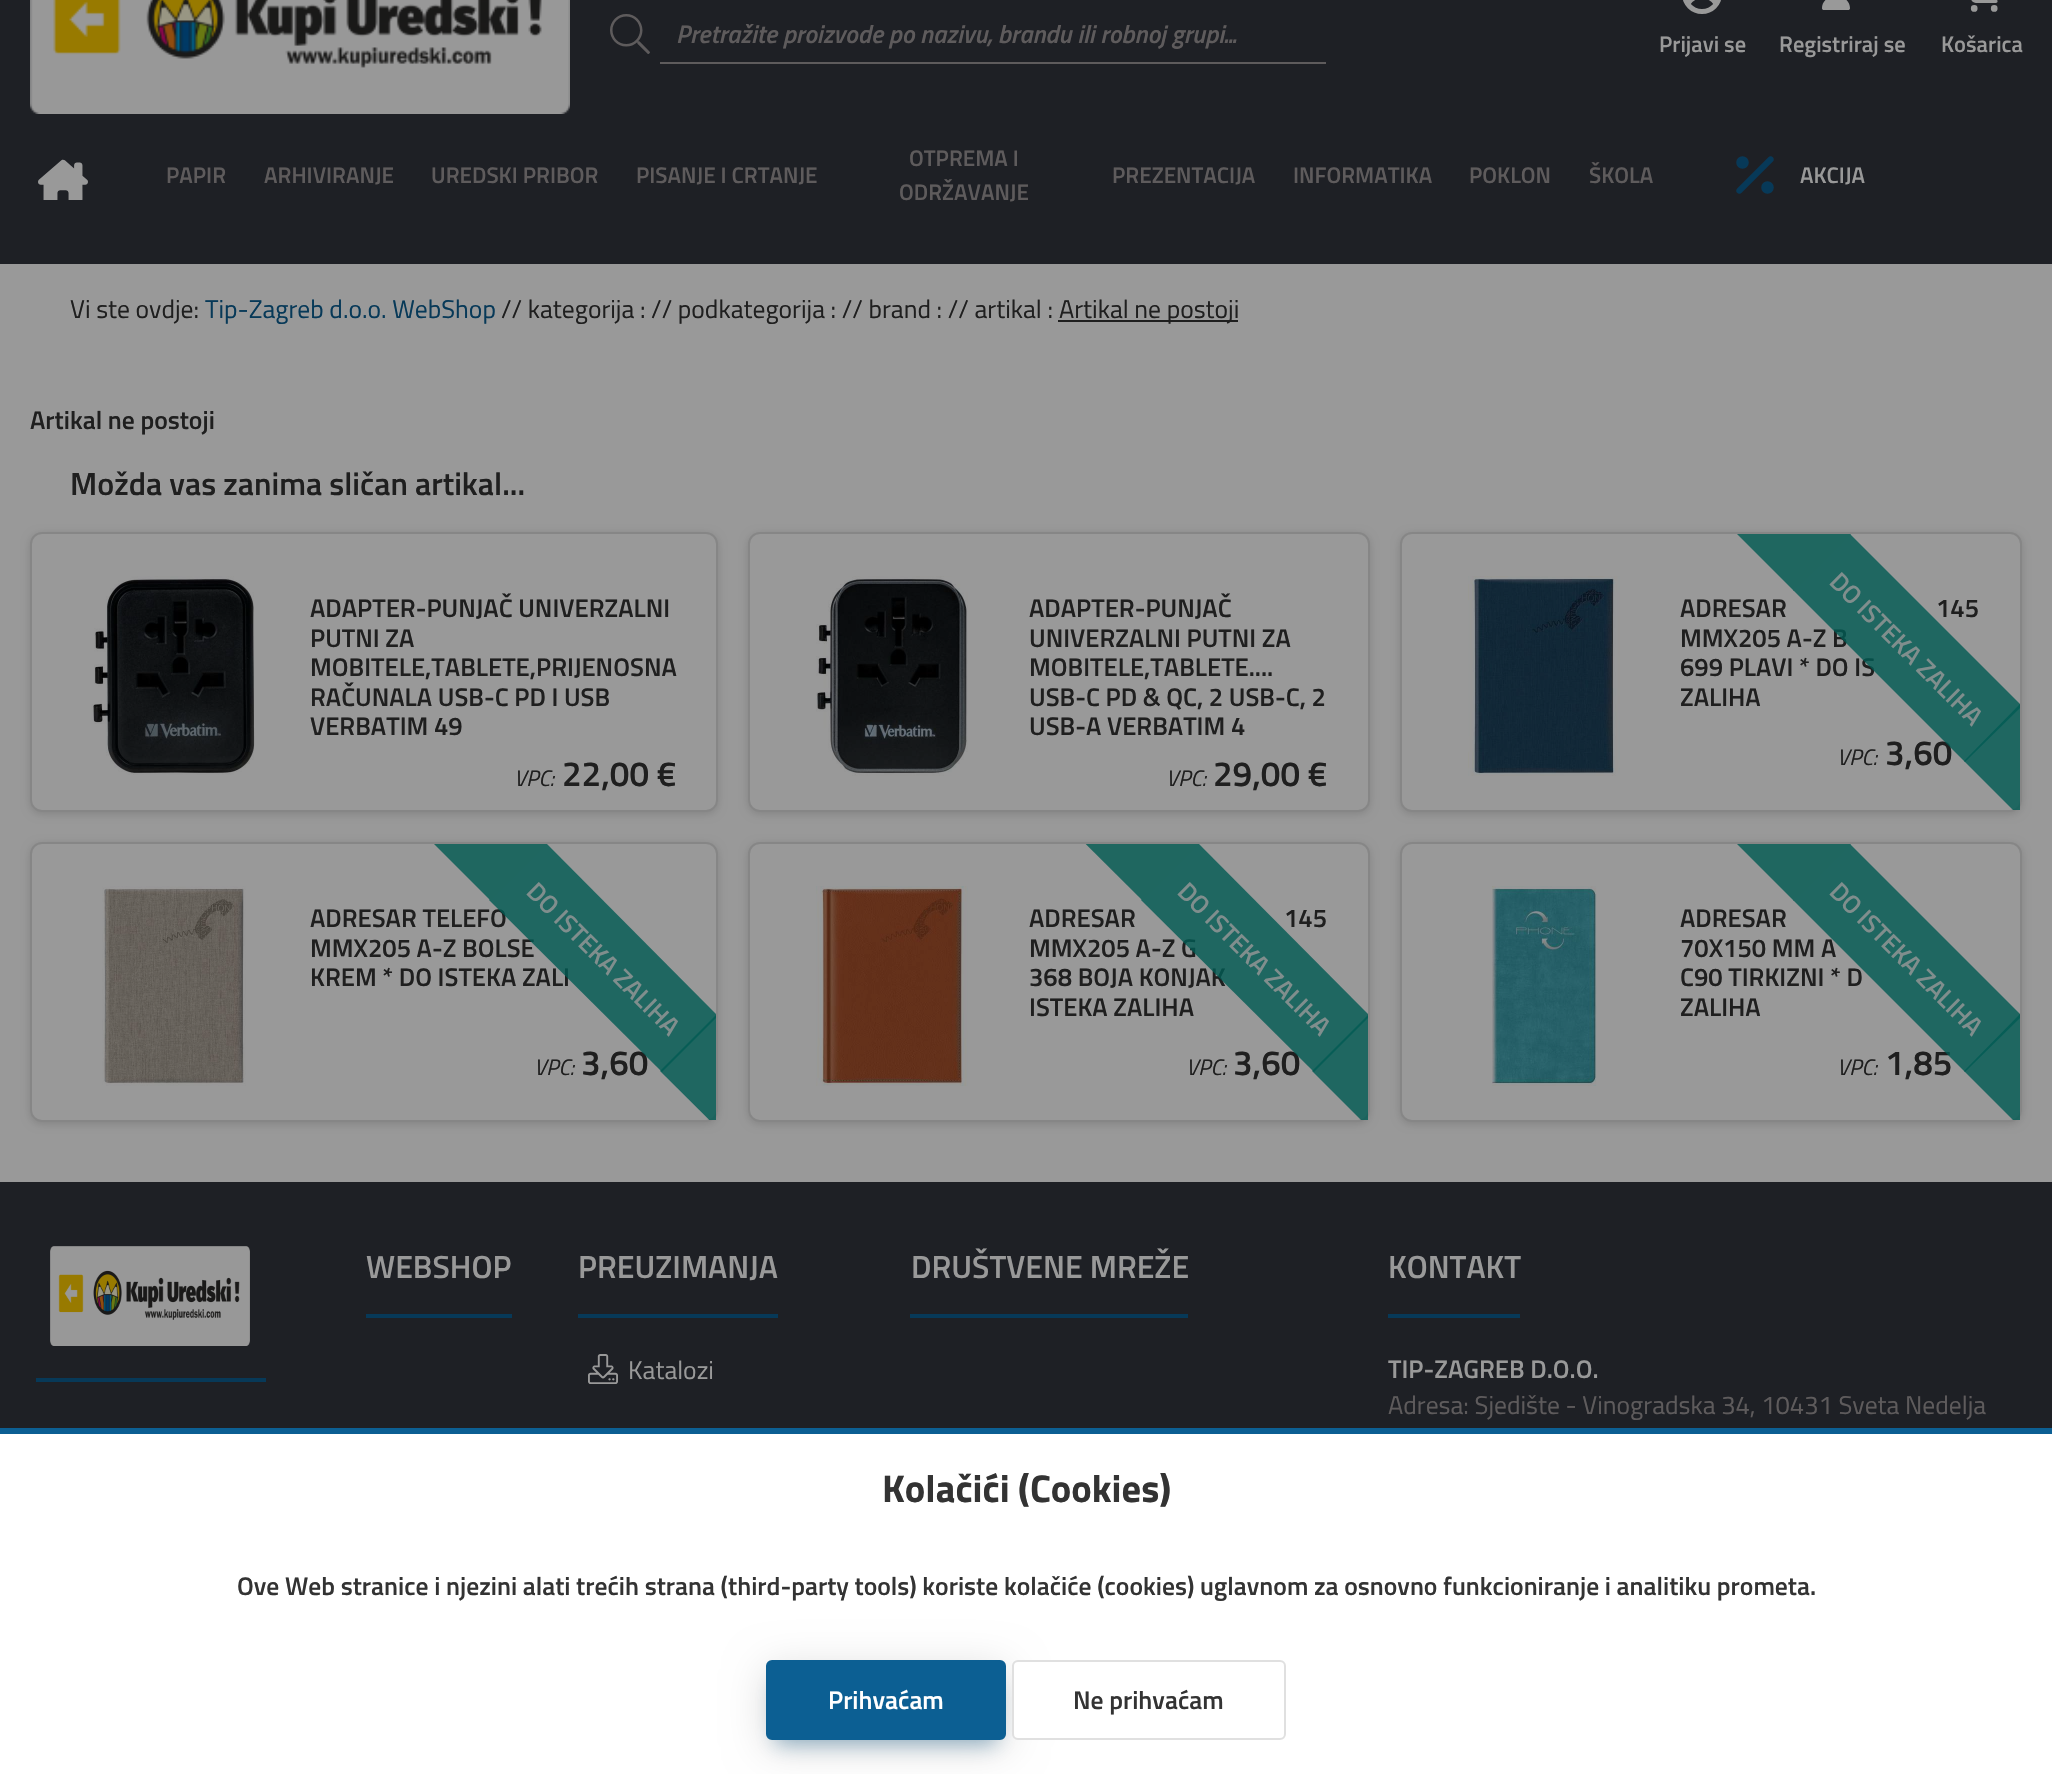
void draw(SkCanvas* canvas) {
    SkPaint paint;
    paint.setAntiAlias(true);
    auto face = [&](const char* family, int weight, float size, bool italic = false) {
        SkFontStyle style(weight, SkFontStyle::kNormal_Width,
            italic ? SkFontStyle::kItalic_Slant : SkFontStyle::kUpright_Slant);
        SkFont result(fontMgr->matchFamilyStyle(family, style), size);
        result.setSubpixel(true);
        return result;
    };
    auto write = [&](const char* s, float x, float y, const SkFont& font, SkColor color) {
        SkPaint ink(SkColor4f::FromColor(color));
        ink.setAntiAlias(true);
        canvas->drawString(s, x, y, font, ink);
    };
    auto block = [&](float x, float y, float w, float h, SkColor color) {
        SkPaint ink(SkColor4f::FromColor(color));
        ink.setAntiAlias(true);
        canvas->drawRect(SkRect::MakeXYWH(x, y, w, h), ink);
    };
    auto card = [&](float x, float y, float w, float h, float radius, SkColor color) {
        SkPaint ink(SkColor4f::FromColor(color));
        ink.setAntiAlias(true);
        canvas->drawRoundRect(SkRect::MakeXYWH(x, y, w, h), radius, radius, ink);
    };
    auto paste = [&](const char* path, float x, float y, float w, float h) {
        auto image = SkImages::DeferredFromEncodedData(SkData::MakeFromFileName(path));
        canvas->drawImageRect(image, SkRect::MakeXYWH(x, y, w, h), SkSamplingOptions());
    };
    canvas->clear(SkColorSetRGB(153, 153, 153));
    block(0, 0, 2052, 264, SkColorSetRGB(30, 32, 37));
    paste("pic1.png", 30, 0, 540, 114);
    paste("pic2.png", 610, 14, 40, 40);
    block(660, 62, 666, 2, SkColorSetRGB(94, 91, 92));
    auto kFont1 = face("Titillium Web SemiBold", 600, 25.6f, true);
    write("Pretražite proizvode po nazivu, brandu ili robnoj grupi...", 676, 43, kFont1, SkColorSetRGB(94, 91, 92));
    paste("pic3.png", 1683, 0, 38, 14);
    auto kFont2 = face("Titillium Web SemiBold", 600, 22.5f);
    write("Prijavi se", 1659, 52, kFont2, SkColorSetRGB(153, 153, 153));
    paste("pic4.png", 1822, 0, 28, 10);
    write("Registriraj se", 1779, 52, kFont2, SkColorSetRGB(153, 153, 153));
    paste("pic5.png", 1970, 0, 28, 12);
    write("Košarica", 1941, 52, kFont2, SkColorSetRGB(153, 153, 153));
    paste("pic6.png", 38, 159, 50, 41);
    write("PAPIR", 166, 183, kFont2, SkColorSetRGB(94, 91, 92));
    write("ARHIVIRANJE", 264, 183, kFont2, SkColorSetRGB(94, 91, 92));
    write("UREDSKI PRIBOR", 431, 183, kFont2, SkColorSetRGB(94, 91, 92));
    write("PISANJE I CRTANJE", 636, 183, kFont2, SkColorSetRGB(94, 91, 92));
    write("OTPREMA I", 909, 166, kFont2, SkColorSetRGB(94, 91, 92));
    write("ODRŽAVANJE", 899, 200, kFont2, SkColorSetRGB(94, 91, 92));
    write("PREZENTACIJA", 1112, 183, kFont2, SkColorSetRGB(94, 91, 92));
    write("INFORMATIKA", 1293, 183, kFont2, SkColorSetRGB(94, 91, 92));
    write("POKLON", 1469, 183, kFont2, SkColorSetRGB(94, 91, 92));
    write("ŠKOLA", 1589, 183, kFont2, SkColorSetRGB(94, 91, 92));
    paste("pic7.png", 1736, 156, 38, 38);
    write("AKCIJA", 1800, 183, kFont2, SkColorSetRGB(153, 153, 153));
    auto kFont3 = face("Titillium Web", 400, 25.6f);
    write("Vi ste ovdje:", 70, 318, kFont3, SkColorSetRGB(31, 31, 31));
    write("Tip-Zagreb d.o.o. WebShop", 205, 318, kFont3, SkColorSetRGB(7, 57, 88));
    write("// kategorija : // podkategorija : // brand : // artikal :", 501, 318, kFont3, SkColorSetRGB(31, 31, 31));
    block(1058, 320, 180, 2, SkColorSetRGB(31, 31, 31));
    write("Artikal ne postoji", 1059, 318, kFont3, SkColorSetRGB(31, 31, 31));
    auto kFont4 = face("Titillium Web SemiBold", 600, 25.6f);
    write("Artikal ne postoji", 30, 429, kFont4, SkColorSetRGB(31, 31, 31));
    auto kFont5 = face("Titillium Web SemiBold", 600, 32);
    write("Možda vas zanima sličan artikal...", 70, 495, kFont5, SkColorSetRGB(31, 31, 31));
    paint.setColor(SkColorSetARGB(36, 0, 0, 0));
    paint.setMaskFilter(SkMaskFilter::MakeBlur(kNormal_SkBlurStyle, 4));
    canvas->drawRoundRect(SkRect::MakeXYWH(30, 534, 688, 280), 12, 12, paint);
    paint.setMaskFilter(nullptr);
    card(30, 532, 688, 280, 12, SkColorSetRGB(153, 153, 153));
    paint.setStyle(SkPaint::kStroke_Style);
    paint.setStrokeWidth(2);
    paint.setColor(SkColorSetARGB(31, 0, 0, 0));
    canvas->drawRoundRect(SkRect::MakeXYWH(31, 533, 686, 278), 11, 11, paint);
    paste("pic8.png", 91, 576, 164, 199);
    write("ADAPTER-PUNJAČ UNIVERZALNI", 310, 617, kFont4, SkColorSetRGB(31, 31, 31));
    write("PUTNI ZA", 310, 647, kFont4, SkColorSetRGB(31, 31, 31));
    write("MOBITELE,TABLETE,PRIJENOSNA", 310, 676, kFont4, SkColorSetRGB(31, 31, 31));
    write("RAČUNALA USB-C PD I USB", 310, 706, kFont4, SkColorSetRGB(31, 31, 31));
    write("VERBATIM 49", 310, 735, kFont4, SkColorSetRGB(31, 31, 31));
    auto kFont6 = face("Titillium Web", 400, 22.5f, true);
    write("VPC:", 514, 786, kFont6, SkColorSetRGB(31, 31, 31));
    auto kFont7 = face("Titillium Web SemiBold", 600, 35);
    write("22,00 €", 562, 786, kFont7, SkColorSetRGB(31, 31, 31));
    paint.setStyle(SkPaint::kFill_Style);
    paint.setColor(SkColorSetARGB(36, 0, 0, 0));
    paint.setMaskFilter(SkMaskFilter::MakeBlur(kNormal_SkBlurStyle, 4));
    canvas->drawRoundRect(SkRect::MakeXYWH(748, 534, 622, 280), 12, 12, paint);
    paint.setMaskFilter(nullptr);
    card(748, 532, 622, 280, 12, SkColorSetRGB(153, 153, 153));
    paint.setStyle(SkPaint::kStroke_Style);
    paint.setColor(SkColorSetARGB(31, 0, 0, 0));
    canvas->drawRoundRect(SkRect::MakeXYWH(749, 533, 620, 278), 11, 11, paint);
    paste("pic9.png", 816, 576, 152, 200);
    write("ADAPTER-PUNJAČ", 1029, 617, kFont4, SkColorSetRGB(31, 31, 31));
    write("UNIVERZALNI PUTNI ZA", 1029, 647, kFont4, SkColorSetRGB(31, 31, 31));
    write("MOBITELE,TABLETE....", 1029, 676, kFont4, SkColorSetRGB(31, 31, 31));
    write("USB-C PD & QC, 2 USB-C, 2", 1029, 706, kFont4, SkColorSetRGB(31, 31, 31));
    write("USB-A VERBATIM 4", 1029, 735, kFont4, SkColorSetRGB(31, 31, 31));
    write("VPC:", 1166, 786, kFont6, SkColorSetRGB(31, 31, 31));
    write("29,00 €", 1213, 786, kFont7, SkColorSetRGB(31, 31, 31));
    paint.setStyle(SkPaint::kFill_Style);
    paint.setColor(SkColorSetARGB(36, 0, 0, 0));
    paint.setMaskFilter(SkMaskFilter::MakeBlur(kNormal_SkBlurStyle, 4));
    canvas->drawRoundRect(SkRect::MakeXYWH(1400, 534, 622, 280), 12, 12, paint);
    paint.setMaskFilter(nullptr);
    card(1400, 532, 622, 280, 12, SkColorSetRGB(153, 153, 153));
    paint.setStyle(SkPaint::kStroke_Style);
    paint.setColor(SkColorSetARGB(31, 0, 0, 0));
    canvas->drawRoundRect(SkRect::MakeXYWH(1401, 533, 620, 278), 11, 11, paint);
    write("145", 1936, 617, kFont4, SkColorSetRGB(31, 31, 31));
    write("MMX205 A-Z B", 1680, 647, kFont4, SkColorSetRGB(31, 31, 31));
    write("699 PLAVI * DO IS", 1680, 676, kFont4, SkColorSetRGB(31, 31, 31));
    write("VPC:", 1837, 765, kFont6, SkColorSetRGB(31, 31, 31));
    write("3,60", 1885, 765, kFont7, SkColorSetRGB(31, 31, 31));
    canvas->save();
    canvas->clipRect(SkRect::MakeXYWH(1402, 534, 618, 276));
    paint.setStyle(SkPaint::kFill_Style);
    paint.setColor(SkColorSetARGB(204, 0, 90, 82));
    canvas->drawPath(SkPathBuilder().moveTo(1849, 533).lineTo(2022, 706).lineTo(1965, 762).lineTo(1793, 590).close().detach(), paint);
    canvas->restore();
    canvas->save();
    canvas->rotate(45, 1828, 583);
    write("DO ISTEKA ZALIHA", 1828, 583, kFont4, SkColorSetRGB(128, 142, 141));
    canvas->restore();
    canvas->save();
    canvas->clipRect(SkRect::MakeXYWH(1402, 534, 618, 276));
    paint.setColor(SkColorSetRGB(31, 103, 96));
    canvas->drawPath(SkPathBuilder().moveTo(1678, 362).lineTo(1851, 535).lineTo(1794, 591).lineTo(1622, 419).close().detach(), paint);
    paint.setColor(SkColorSetARGB(204, 0, 90, 82));
    canvas->drawPath(SkPathBuilder().moveTo(2020, 704).lineTo(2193, 877).lineTo(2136, 933).lineTo(1964, 761).close().detach(), paint);
    canvas->restore();
    paste("pic10.png", 1468, 576, 152, 200);
    write("ADRESAR", 1680, 617, kFont4, SkColorSetRGB(31, 31, 31));
    write("ZALIHA", 1680, 706, kFont4, SkColorSetRGB(31, 31, 31));
    paint.setColor(SkColorSetARGB(36, 0, 0, 0));
    paint.setMaskFilter(SkMaskFilter::MakeBlur(kNormal_SkBlurStyle, 4));
    canvas->drawRoundRect(SkRect::MakeXYWH(30, 844, 688, 280), 12, 12, paint);
    paint.setMaskFilter(nullptr);
    card(30, 842, 688, 280, 12, SkColorSetRGB(153, 153, 153));
    paint.setStyle(SkPaint::kStroke_Style);
    paint.setColor(SkColorSetARGB(31, 0, 0, 0));
    canvas->drawRoundRect(SkRect::MakeXYWH(31, 843, 686, 278), 11, 11, paint);
    write("ADRESAR TELEFO", 310, 927, kFont4, SkColorSetRGB(31, 31, 31));
    write("MMX205 A-Z BOLSE", 310, 957, kFont4, SkColorSetRGB(31, 31, 31));
    write("KREM * DO ISTEKA ZALI", 310, 986, kFont4, SkColorSetRGB(31, 31, 31));
    write("VPC:", 534, 1075, kFont6, SkColorSetRGB(31, 31, 31));
    write("3,60", 581, 1075, kFont7, SkColorSetRGB(31, 31, 31));
    canvas->save();
    canvas->clipRect(SkRect::MakeXYWH(32, 844, 684, 276));
    paint.setStyle(SkPaint::kFill_Style);
    paint.setColor(SkColorSetARGB(204, 0, 90, 82));
    canvas->drawPath(SkPathBuilder().moveTo(546, 843).lineTo(718, 1016).lineTo(662, 1072).lineTo(489, 900).close().detach(), paint);
    canvas->restore();
    canvas->save();
    canvas->rotate(45, 525, 893);
    write("DO ISTEKA ZALIHA", 525, 893, kFont4, SkColorSetRGB(128, 142, 141));
    canvas->restore();
    canvas->save();
    canvas->clipRect(SkRect::MakeXYWH(32, 844, 684, 276));
    paint.setColor(SkColorSetRGB(31, 103, 96));
    canvas->drawPath(SkPathBuilder().moveTo(375, 672).lineTo(547, 845).lineTo(491, 901).lineTo(319, 729).close().detach(), paint);
    paint.setColor(SkColorSetARGB(204, 0, 90, 82));
    canvas->drawPath(SkPathBuilder().moveTo(717, 1014).lineTo(889, 1187).lineTo(833, 1243).lineTo(660, 1071).close().detach(), paint);
    canvas->restore();
    paste("pic11.png", 102, 886, 144, 200);
    paint.setColor(SkColorSetARGB(36, 0, 0, 0));
    paint.setMaskFilter(SkMaskFilter::MakeBlur(kNormal_SkBlurStyle, 4));
    canvas->drawRoundRect(SkRect::MakeXYWH(748, 844, 622, 280), 12, 12, paint);
    paint.setMaskFilter(nullptr);
    card(748, 842, 622, 280, 12, SkColorSetRGB(153, 153, 153));
    paint.setStyle(SkPaint::kStroke_Style);
    paint.setColor(SkColorSetARGB(31, 0, 0, 0));
    canvas->drawRoundRect(SkRect::MakeXYWH(749, 843, 620, 278), 11, 11, paint);
    write("145", 1284, 927, kFont4, SkColorSetRGB(31, 31, 31));
    write("MMX205 A-Z G", 1029, 957, kFont4, SkColorSetRGB(31, 31, 31));
    write("368 BOJA KONJAK", 1029, 986, kFont4, SkColorSetRGB(31, 31, 31));
    write("ISTEKA ZALIHA", 1029, 1016, kFont4, SkColorSetRGB(31, 31, 31));
    write("VPC:", 1186, 1075, kFont6, SkColorSetRGB(31, 31, 31));
    write("3,60", 1233, 1075, kFont7, SkColorSetRGB(31, 31, 31));
    canvas->save();
    canvas->clipRect(SkRect::MakeXYWH(750, 844, 618, 276));
    paint.setStyle(SkPaint::kFill_Style);
    paint.setColor(SkColorSetARGB(204, 0, 90, 82));
    canvas->drawPath(SkPathBuilder().moveTo(1198, 843).lineTo(1370, 1016).lineTo(1314, 1072).lineTo(1141, 900).close().detach(), paint);
    canvas->restore();
    canvas->save();
    canvas->rotate(45, 1176, 893);
    write("DO ISTEKA ZALIHA", 1176, 893, kFont4, SkColorSetRGB(128, 142, 141));
    canvas->restore();
    canvas->save();
    canvas->clipRect(SkRect::MakeXYWH(750, 844, 618, 276));
    paint.setColor(SkColorSetRGB(31, 103, 96));
    canvas->drawPath(SkPathBuilder().moveTo(1027, 672).lineTo(1199, 845).lineTo(1143, 901).lineTo(970, 729).close().detach(), paint);
    paint.setColor(SkColorSetARGB(204, 0, 90, 82));
    canvas->drawPath(SkPathBuilder().moveTo(1369, 1014).lineTo(1541, 1187).lineTo(1484, 1243).lineTo(1312, 1071).close().detach(), paint);
    canvas->restore();
    paste("pic12.png", 816, 886, 152, 200);
    write("ADRESAR", 1029, 927, kFont4, SkColorSetRGB(31, 31, 31));
    paint.setColor(SkColorSetARGB(36, 0, 0, 0));
    paint.setMaskFilter(SkMaskFilter::MakeBlur(kNormal_SkBlurStyle, 4));
    canvas->drawRoundRect(SkRect::MakeXYWH(1400, 844, 622, 280), 12, 12, paint);
    paint.setMaskFilter(nullptr);
    card(1400, 842, 622, 280, 12, SkColorSetRGB(153, 153, 153));
    paint.setStyle(SkPaint::kStroke_Style);
    paint.setColor(SkColorSetARGB(31, 0, 0, 0));
    canvas->drawRoundRect(SkRect::MakeXYWH(1401, 843, 620, 278), 11, 11, paint);
    write("70X150 MM A", 1680, 957, kFont4, SkColorSetRGB(31, 31, 31));
    write("C90 TIRKIZNI * D", 1680, 986, kFont4, SkColorSetRGB(31, 31, 31));
    write("VPC:", 1837, 1075, kFont6, SkColorSetRGB(31, 31, 31));
    write("1,85", 1885, 1075, kFont7, SkColorSetRGB(31, 31, 31));
    canvas->save();
    canvas->clipRect(SkRect::MakeXYWH(1402, 844, 618, 276));
    paint.setStyle(SkPaint::kFill_Style);
    paint.setColor(SkColorSetARGB(204, 0, 90, 82));
    canvas->drawPath(SkPathBuilder().moveTo(1849, 843).lineTo(2022, 1016).lineTo(1965, 1072).lineTo(1793, 900).close().detach(), paint);
    canvas->restore();
    canvas->save();
    canvas->rotate(45, 1828, 893);
    write("DO ISTEKA ZALIHA", 1828, 893, kFont4, SkColorSetRGB(128, 142, 141));
    canvas->restore();
    canvas->save();
    canvas->clipRect(SkRect::MakeXYWH(1402, 844, 618, 276));
    paint.setColor(SkColorSetRGB(31, 103, 96));
    canvas->drawPath(SkPathBuilder().moveTo(1678, 672).lineTo(1851, 845).lineTo(1794, 901).lineTo(1622, 729).close().detach(), paint);
    paint.setColor(SkColorSetARGB(204, 0, 90, 82));
    canvas->drawPath(SkPathBuilder().moveTo(2020, 1014).lineTo(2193, 1187).lineTo(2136, 1243).lineTo(1964, 1071).close().detach(), paint);
    canvas->restore();
    paste("pic13.png", 1492, 886, 105, 200);
    write("ADRESAR", 1680, 927, kFont4, SkColorSetRGB(31, 31, 31));
    write("ZALIHA", 1680, 1016, kFont4, SkColorSetRGB(31, 31, 31));
    block(0, 1182, 2052, 246, SkColorSetRGB(30, 32, 37));
    block(36, 1378, 230, 4, SkColorSetRGB(7, 57, 88));
    paste("pic14.png", 50, 1246, 200, 100);
    block(366, 1314, 146, 4, SkColorSetRGB(7, 57, 88));
    write("WEBSHOP", 366, 1278, kFont5, SkColorSetRGB(153, 153, 153));
    block(578, 1314, 200, 4, SkColorSetRGB(7, 57, 88));
    write("PREUZIMANJA", 578, 1278, kFont5, SkColorSetRGB(153, 153, 153));
    paste("pic15.png", 588, 1354, 30, 30);
    write("Katalozi", 628, 1379, kFont3, SkColorSetRGB(153, 153, 153));
    block(910, 1314, 278, 4, SkColorSetRGB(7, 57, 88));
    write("DRUŠTVENE MREŽE", 911, 1278, kFont5, SkColorSetRGB(153, 153, 153));
    block(1388, 1314, 132, 4, SkColorSetRGB(7, 57, 88));
    write("KONTAKT", 1388, 1278, kFont5, SkColorSetRGB(153, 153, 153));
    write("TIP-ZAGREB D.O.O.", 1388, 1378, kFont4, SkColorSetRGB(153, 153, 153));
    write("Adresa: Sjedište - Vinogradska 34, 10431 Sveta Nedelja", 1388, 1414, kFont3, SkColorSetRGB(94, 91, 92));
    block(0, 1434, 2052, 340, SK_ColorWHITE);
    block(0, 1428, 2052, 6, SkColorSetRGB(12, 95, 147));
    auto kFont8 = face("Titillium Web", 700, 38.5f);
    write("Kolačići (Cookies)", 882, 1502, kFont8, SkColorSetRGB(51, 51, 51));
    write("Ove Web stranice i njezini alati trećih strana (third-party tools) koriste kolačiće (cookies) uglavnom za osnovno funkcioniranje i analitiku prometa.", 237, 1595, kFont4, SkColorSetRGB(51, 51, 51));
    paint.setColor(SkColorSetARGB(102, 12, 95, 147));
    paint.setMaskFilter(SkMaskFilter::MakeBlur(kNormal_SkBlurStyle, 10));
    canvas->drawRect(SkRect::MakeXYWH(776, 1684, 220, 60), paint);
    paint.setMaskFilter(nullptr);
    paint.setColor(SkColorSetARGB(36, 0, 0, 0));
    paint.setMaskFilter(SkMaskFilter::MakeBlur(kNormal_SkBlurStyle, 20));
    canvas->drawRoundRect(SkRect::MakeXYWH(766, 1668, 240, 80), 6, 6, paint);
    paint.setMaskFilter(nullptr);
    paint.setColor(SkColorSetRGB(12, 95, 147));
    canvas->drawRoundRect(SkRect::MakeXYWH(767, 1661, 238, 78), 5, 5, paint);
    paint.setStyle(SkPaint::kStroke_Style);
    canvas->drawRoundRect(SkRect::MakeXYWH(767, 1661, 238, 78), 5, 5, paint);
    write("Prihvaćam", 828, 1709, kFont4, SK_ColorWHITE);
    card(1012, 1660, 274, 80, 6, SK_ColorWHITE);
    paint.setColor(SkColorSetARGB(31, 0, 0, 0));
    canvas->drawRoundRect(SkRect::MakeXYWH(1013, 1661, 272, 78), 5, 5, paint);
    write("Ne prihvaćam", 1073, 1709, kFont4, SkColorSetRGB(51, 51, 51));
}
